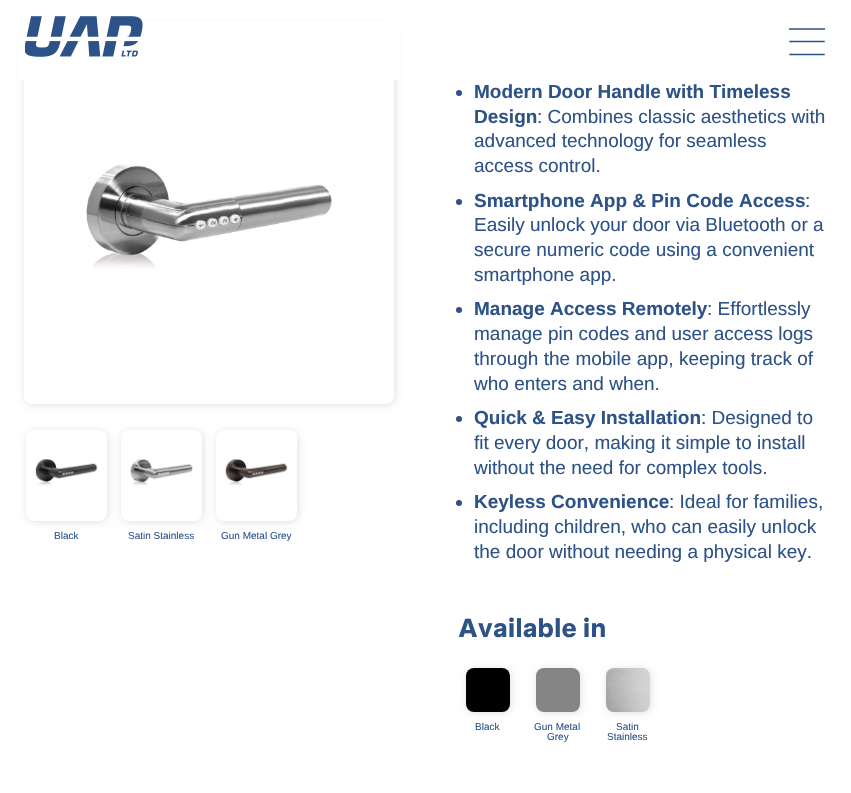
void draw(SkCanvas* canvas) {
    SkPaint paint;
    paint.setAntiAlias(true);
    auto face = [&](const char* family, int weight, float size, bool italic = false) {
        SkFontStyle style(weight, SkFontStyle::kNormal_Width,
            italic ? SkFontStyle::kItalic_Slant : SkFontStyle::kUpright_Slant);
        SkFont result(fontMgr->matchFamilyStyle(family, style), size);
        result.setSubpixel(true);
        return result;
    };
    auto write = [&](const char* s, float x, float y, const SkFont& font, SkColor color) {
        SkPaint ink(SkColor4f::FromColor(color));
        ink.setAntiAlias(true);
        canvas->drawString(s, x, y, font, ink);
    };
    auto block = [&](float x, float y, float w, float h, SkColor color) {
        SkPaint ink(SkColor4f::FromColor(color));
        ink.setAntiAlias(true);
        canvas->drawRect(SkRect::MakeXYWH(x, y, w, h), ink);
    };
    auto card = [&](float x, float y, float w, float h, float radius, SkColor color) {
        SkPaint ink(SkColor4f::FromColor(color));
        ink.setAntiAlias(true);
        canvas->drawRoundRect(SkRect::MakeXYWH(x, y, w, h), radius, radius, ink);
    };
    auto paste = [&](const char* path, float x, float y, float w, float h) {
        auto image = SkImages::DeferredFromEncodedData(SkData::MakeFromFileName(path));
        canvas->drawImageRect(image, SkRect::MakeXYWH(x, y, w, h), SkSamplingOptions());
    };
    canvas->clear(SK_ColorWHITE);
    paint.setColor(SkColorSetARGB(38, 0, 0, 0));
    paint.setMaskFilter(SkMaskFilter::MakeBlur(kNormal_SkBlurStyle, 4));
    canvas->drawRoundRect(SkRect::MakeXYWH(26, 27, 368, 377), 7, 7, paint);
    paint.setMaskFilter(nullptr);
    card(24, 25, 370, 379, 8, SK_ColorWHITE);
    block(20, 21, 380, 59, SK_ColorWHITE);
    paste("pic1.png", 25, 16, 118, 41);
    block(789, 28, 36, 2, SkColorSetRGB(97, 125, 166));
    paint.setStyle(SkPaint::kStroke_Style);
    paint.setStrokeWidth(1.5f);
    paint.setStrokeCap(SkPaint::kSquare_Cap);
    paint.setColor(SkColorSetRGB(44, 82, 136));
    canvas->drawPath(SkPathBuilder().moveTo(790, 54.5f).lineTo(824, 54.5f).moveTo(790, 41.5f).lineTo(824, 41.5f).detach(), paint);
    paste("pic2.png", 86, 164, 246, 105);
    paint.setStyle(SkPaint::kFill_Style);
    paint.setColor(SkColorSetARGB(38, 0, 0, 0));
    paint.setMaskFilter(SkMaskFilter::MakeBlur(kNormal_SkBlurStyle, 4));
    canvas->drawRoundRect(SkRect::MakeXYWH(28, 432, 79, 89), 7, 7, paint);
    paint.setMaskFilter(nullptr);
    card(26, 430, 81, 91, 8, SK_ColorWHITE);
    paste("pic3.png", 35, 459, 63, 27);
    auto kFont1 = face("Liberation Sans", 400, 10);
    write("Black", 54, 539, kFont1, SkColorSetRGB(44, 82, 136));
    paint.setMaskFilter(SkMaskFilter::MakeBlur(kNormal_SkBlurStyle, 4));
    canvas->drawRoundRect(SkRect::MakeXYWH(123, 432, 79, 89), 7, 7, paint);
    paint.setMaskFilter(nullptr);
    card(121, 430, 81, 91, 8, SK_ColorWHITE);
    paste("pic4.png", 130, 459, 64, 27);
    write("Satin Stainless", 128, 539, kFont1, SkColorSetRGB(44, 82, 136));
    paint.setMaskFilter(SkMaskFilter::MakeBlur(kNormal_SkBlurStyle, 4));
    canvas->drawRoundRect(SkRect::MakeXYWH(218, 432, 79, 89), 7, 7, paint);
    paint.setMaskFilter(nullptr);
    card(216, 430, 81, 91, 8, SK_ColorWHITE);
    paste("pic5.png", 225, 459, 63, 26);
    write("Gun Metal Grey", 221, 539, kFont1, SkColorSetRGB(44, 82, 136));
    paint.setColor(SkColorSetRGB(44, 82, 136));
    canvas->drawCircle(459, 93, 3, paint);
    auto kFont2 = face("Liberation Sans", 700, 19);
    write("Modern Door Handle with Timeless", 474, 98, kFont2, SkColorSetRGB(44, 82, 136));
    write("Design", 474, 123, kFont2, SkColorSetRGB(44, 82, 136));
    auto kFont3 = face("Liberation Sans", 400, 19);
    write(": Combines classic aesthetics with", 537, 123, kFont3, SkColorSetRGB(44, 82, 136));
    write("advanced technology for seamless", 474, 147, kFont3, SkColorSetRGB(44, 82, 136));
    write("access control.", 474, 172, kFont3, SkColorSetRGB(44, 82, 136));
    canvas->drawCircle(459, 202, 3, paint);
    write("Smartphone App & Pin Code Access", 474, 207, kFont2, SkColorSetRGB(44, 82, 136));
    write(":", 805, 207, kFont3, SkColorSetRGB(44, 82, 136));
    write("Easily unlock your door via Bluetooth or a", 474, 231, kFont3, SkColorSetRGB(44, 82, 136));
    write("secure numeric code using a convenient", 474, 256, kFont3, SkColorSetRGB(44, 82, 136));
    write("smartphone app.", 474, 281, kFont3, SkColorSetRGB(44, 82, 136));
    canvas->drawCircle(459, 310, 3, paint);
    write("Manage Access Remotely", 474, 315, kFont2, SkColorSetRGB(44, 82, 136));
    write(": Effortlessly", 707, 315, kFont3, SkColorSetRGB(44, 82, 136));
    write("manage pin codes and user access logs", 474, 340, kFont3, SkColorSetRGB(44, 82, 136));
    write("through the mobile app, keeping track of", 474, 365, kFont3, SkColorSetRGB(44, 82, 136));
    write("who enters and when.", 474, 390, kFont3, SkColorSetRGB(44, 82, 136));
    canvas->drawCircle(459, 419, 3, paint);
    write("Quick & Easy Installation", 474, 424, kFont2, SkColorSetRGB(44, 82, 136));
    write(": Designed to", 701, 424, kFont3, SkColorSetRGB(44, 82, 136));
    write("fit every door, making it simple to install", 474, 449, kFont3, SkColorSetRGB(44, 82, 136));
    write("without the need for complex tools.", 474, 474, kFont3, SkColorSetRGB(44, 82, 136));
    canvas->drawCircle(459, 503, 3, paint);
    write("Keyless Convenience", 474, 508, kFont2, SkColorSetRGB(44, 82, 136));
    write(": Ideal for families,", 669, 508, kFont3, SkColorSetRGB(44, 82, 136));
    write("including children, who can easily unlock", 474, 533, kFont3, SkColorSetRGB(44, 82, 136));
    write("the door without needing a physical key.", 474, 558, kFont3, SkColorSetRGB(44, 82, 136));
    auto kFont4 = face("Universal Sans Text", 700, 26);
    write("Available in", 458, 637, kFont4, SkColorSetRGB(44, 82, 136));
    paint.setColor(SkColorSetARGB(38, 0, 0, 0));
    paint.setMaskFilter(SkMaskFilter::MakeBlur(kNormal_SkBlurStyle, 4));
    canvas->drawRoundRect(SkRect::MakeXYWH(468, 670, 42, 42), 7, 7, paint);
    paint.setMaskFilter(nullptr);
    paste("pic6.png", 466, 668, 44, 44);
    write("Black", 475, 730, kFont1, SkColorSetRGB(44, 82, 136));
    paint.setMaskFilter(SkMaskFilter::MakeBlur(kNormal_SkBlurStyle, 4));
    canvas->drawRoundRect(SkRect::MakeXYWH(538, 670, 42, 42), 7, 7, paint);
    paint.setMaskFilter(nullptr);
    paste("pic7.png", 536, 668, 44, 44);
    write("Gun Metal", 534, 730, kFont1, SkColorSetRGB(44, 82, 136));
    write("Grey", 547, 740, kFont1, SkColorSetRGB(44, 82, 136));
    paint.setMaskFilter(SkMaskFilter::MakeBlur(kNormal_SkBlurStyle, 4));
    canvas->drawRoundRect(SkRect::MakeXYWH(608, 670, 42, 42), 7, 7, paint);
    paint.setMaskFilter(nullptr);
    paste("pic8.png", 606, 668, 44, 44);
    write("Satin", 616, 730, kFont1, SkColorSetRGB(44, 82, 136));
    write("Stainless", 607, 740, kFont1, SkColorSetRGB(44, 82, 136));
}
